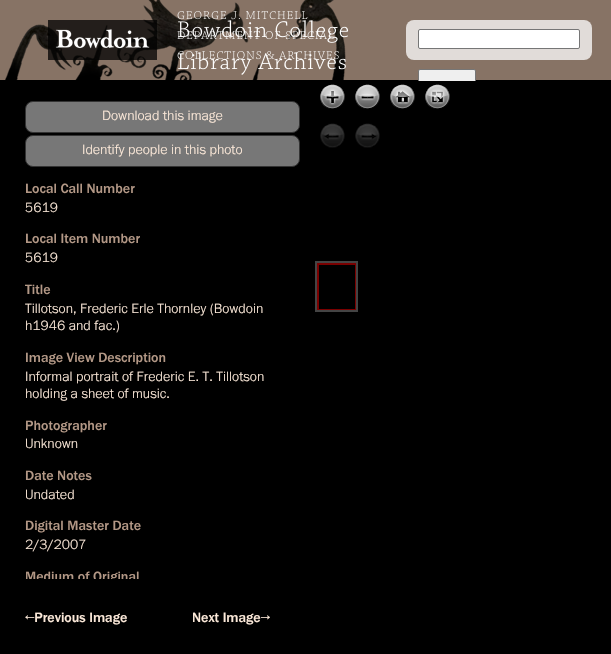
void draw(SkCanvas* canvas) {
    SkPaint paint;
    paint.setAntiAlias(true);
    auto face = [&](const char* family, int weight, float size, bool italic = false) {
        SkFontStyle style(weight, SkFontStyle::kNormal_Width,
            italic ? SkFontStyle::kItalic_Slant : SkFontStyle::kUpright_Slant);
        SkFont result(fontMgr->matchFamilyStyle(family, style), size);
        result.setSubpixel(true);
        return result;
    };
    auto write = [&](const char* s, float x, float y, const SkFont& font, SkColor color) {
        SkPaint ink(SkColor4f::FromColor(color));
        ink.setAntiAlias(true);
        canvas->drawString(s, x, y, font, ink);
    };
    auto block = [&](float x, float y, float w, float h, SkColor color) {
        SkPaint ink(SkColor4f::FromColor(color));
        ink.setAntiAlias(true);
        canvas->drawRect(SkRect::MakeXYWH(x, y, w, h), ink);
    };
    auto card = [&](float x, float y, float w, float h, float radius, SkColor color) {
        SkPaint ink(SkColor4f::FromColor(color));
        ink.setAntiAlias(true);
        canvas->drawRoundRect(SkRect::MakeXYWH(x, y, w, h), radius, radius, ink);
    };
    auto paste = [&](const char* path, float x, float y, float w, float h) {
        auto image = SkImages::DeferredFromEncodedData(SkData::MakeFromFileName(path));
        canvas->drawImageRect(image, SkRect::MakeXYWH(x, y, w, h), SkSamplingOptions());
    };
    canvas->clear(SK_ColorBLACK);
    block(0, 0, 611, 80, SkColorSetRGB(135, 115, 101));
    paste("pic1.png", 5, 0, 341, 80);
    paste("pic2.png", 48, 20, 109, 40);
    paste("pic3.png", 177, 11, 131, 9);
    paste("pic6.png", 178, 20, 171, 23);
    paste("pic4.png", 177, 31, 157, 9);
    paste("pic7.png", 178, 52, 168, 23);
    paste("pic5.png", 177, 51, 162, 9);
    card(406, 20, 186, 40, 8, SkColorSetRGB(225, 220, 217));
    paint.setColor(SK_ColorWHITE);
    canvas->drawRoundRect(SkRect::MakeXYWH(418.5f, 29.5f, 161, 19), 1.5f, 1.5f, paint);
    paint.setStyle(SkPaint::kStroke_Style);
    paint.setStrokeWidth(1);
    paint.setColor(SkColorSetRGB(118, 118, 118));
    canvas->drawRoundRect(SkRect::MakeXYWH(418.5f, 29.5f, 161, 19), 1.5f, 1.5f, paint);
    paint.setStyle(SkPaint::kFill_Style);
    paint.setColor(SkColorSetRGB(239, 239, 239));
    canvas->drawRoundRect(SkRect::MakeXYWH(418.5f, 69.5f, 57, 20), 1.5f, 1.5f, paint);
    paint.setStyle(SkPaint::kStroke_Style);
    paint.setColor(SkColorSetRGB(118, 118, 118));
    canvas->drawRoundRect(SkRect::MakeXYWH(418.5f, 69.5f, 57, 20), 1.5f, 1.5f, paint);
    block(418, 81, 58, 9, SK_ColorBLACK);
    paint.setStyle(SkPaint::kFill_Style);
    paint.setColor(SkColorSetRGB(119, 119, 119));
    canvas->drawRoundRect(SkRect::MakeXYWH(25.5f, 101.5f, 274, 31), 7.5f, 7.5f, paint);
    paint.setStyle(SkPaint::kStroke_Style);
    paint.setColor(SkColorSetRGB(51, 51, 51));
    canvas->drawRoundRect(SkRect::MakeXYWH(25.5f, 101.5f, 274, 31), 7.5f, 7.5f, paint);
    auto kFont1 = face("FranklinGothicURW", 400, 14);
    write("Download this image", 102, 120, kFont1, SkColorSetRGB(252, 233, 217));
    paint.setStyle(SkPaint::kFill_Style);
    paint.setColor(SkColorSetRGB(119, 119, 119));
    canvas->drawRoundRect(SkRect::MakeXYWH(25.5f, 135.5f, 274, 31), 7.5f, 7.5f, paint);
    paint.setStyle(SkPaint::kStroke_Style);
    paint.setColor(SkColorSetRGB(51, 51, 51));
    canvas->drawRoundRect(SkRect::MakeXYWH(25.5f, 135.5f, 274, 31), 7.5f, 7.5f, paint);
    write("Identify people in this photo", 82, 154, kFont1, SkColorSetRGB(252, 233, 217));
    auto kFont2 = face("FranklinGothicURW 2", 400, 14);
    write("Local Call Number", 25, 193, kFont2, SkColorSetRGB(179, 152, 134));
    write("5619", 25, 212, kFont1, SkColorSetRGB(252, 233, 217));
    write("Local Item Number", 25, 243, kFont2, SkColorSetRGB(179, 152, 134));
    write("5619", 25, 262, kFont1, SkColorSetRGB(252, 233, 217));
    write("Title", 25, 294, kFont2, SkColorSetRGB(179, 152, 134));
    write("Tillotson, Frederic Erle Thornley (Bowdoin", 25, 313, kFont1, SkColorSetRGB(252, 233, 217));
    write("h1946 and fac.)", 25, 330, kFont1, SkColorSetRGB(252, 233, 217));
    write("Image View Description", 25, 362, kFont2, SkColorSetRGB(179, 152, 134));
    write("Informal portrait of Frederic E. T. Tillotson", 25, 381, kFont1, SkColorSetRGB(252, 233, 217));
    write("holding a sheet of music.", 25, 398, kFont1, SkColorSetRGB(252, 233, 217));
    write("Photographer", 25, 430, kFont2, SkColorSetRGB(179, 152, 134));
    write("Unknown", 25, 448, kFont1, SkColorSetRGB(252, 233, 217));
    write("Date Notes", 25, 480, kFont2, SkColorSetRGB(179, 152, 134));
    write("Undated", 25, 499, kFont1, SkColorSetRGB(252, 233, 217));
    write("Digital Master Date", 25, 530, kFont2, SkColorSetRGB(179, 152, 134));
    write("2/3/2007", 25, 549, kFont1, SkColorSetRGB(252, 233, 217));
    canvas->save();
    canvas->clipRect(SkRect::MakeXYWH(25, 101, 290, 478));
    write("Medium of Original", 25, 581, kFont2, SkColorSetRGB(179, 152, 134));
    canvas->restore();
    paste("pic8.png", 320, 84, 25, 25);
    paste("pic9.png", 320, 84, 25, 25);
    paste("pic10.png", 355, 84, 25, 25);
    paste("pic11.png", 355, 84, 25, 25);
    paste("pic12.png", 390, 84, 25, 25);
    paste("pic13.png", 390, 84, 25, 25);
    paste("pic14.png", 425, 84, 25, 25);
    paste("pic15.png", 425, 84, 25, 25);
    paste("pic16.png", 320, 123, 25, 25);
    paste("pic17.png", 320, 123, 25, 25);
    paste("pic18.png", 355, 123, 25, 25);
    paste("pic19.png", 355, 123, 25, 25);
    paint.setStrokeWidth(2);
    paint.setColor(SkColorSetRGB(68, 68, 68));
    canvas->drawRect(SkRect::MakeXYWH(316, 262, 41, 49), paint);
    canvas->save();
    canvas->clipRect(SkRect::MakeXYWH(317, 263, 39, 47));
    paint.setColor(SkColorSetRGB(122, 0, 0));
    canvas->drawRect(SkRect::MakeXYWH(318, 264, 38, 46), paint);
    canvas->restore();
    write("←Previous Image", 25, 622, kFont2, SkColorSetRGB(252, 233, 217));
    write("Next Image→", 192, 622, kFont2, SkColorSetRGB(252, 233, 217));
}
